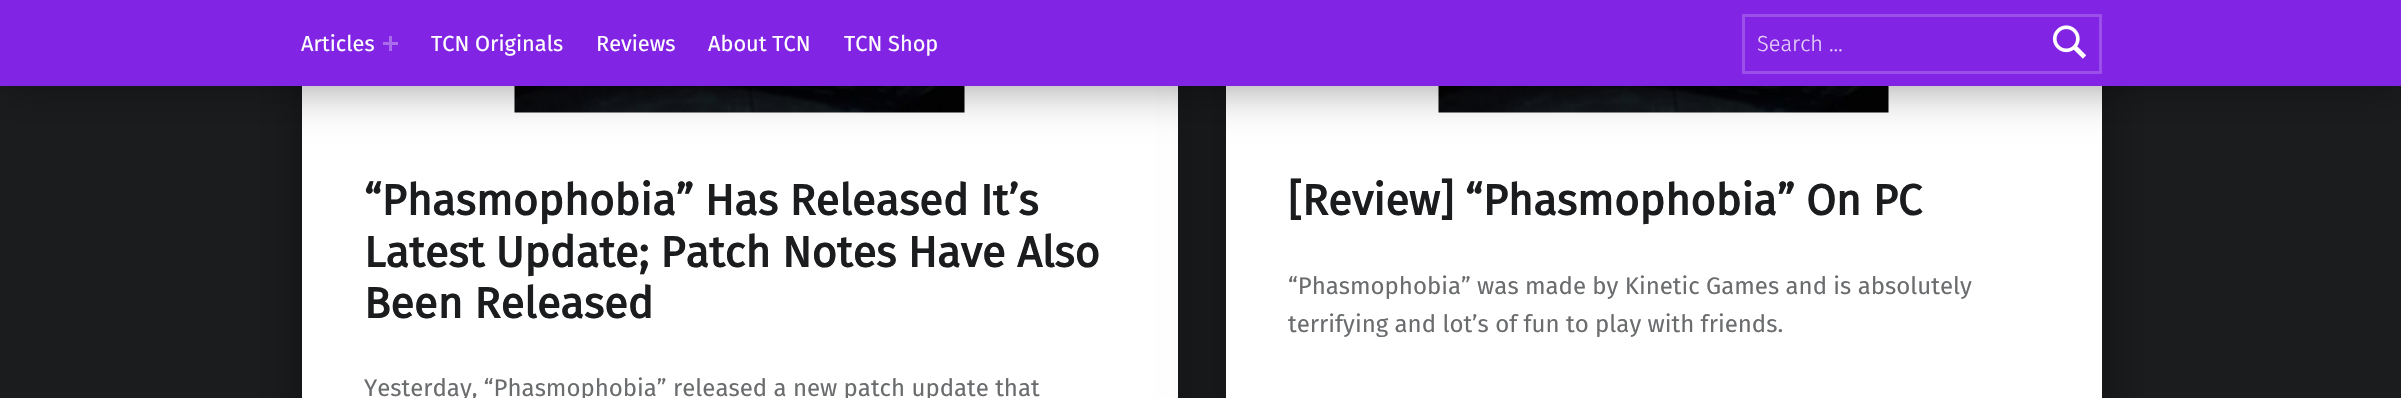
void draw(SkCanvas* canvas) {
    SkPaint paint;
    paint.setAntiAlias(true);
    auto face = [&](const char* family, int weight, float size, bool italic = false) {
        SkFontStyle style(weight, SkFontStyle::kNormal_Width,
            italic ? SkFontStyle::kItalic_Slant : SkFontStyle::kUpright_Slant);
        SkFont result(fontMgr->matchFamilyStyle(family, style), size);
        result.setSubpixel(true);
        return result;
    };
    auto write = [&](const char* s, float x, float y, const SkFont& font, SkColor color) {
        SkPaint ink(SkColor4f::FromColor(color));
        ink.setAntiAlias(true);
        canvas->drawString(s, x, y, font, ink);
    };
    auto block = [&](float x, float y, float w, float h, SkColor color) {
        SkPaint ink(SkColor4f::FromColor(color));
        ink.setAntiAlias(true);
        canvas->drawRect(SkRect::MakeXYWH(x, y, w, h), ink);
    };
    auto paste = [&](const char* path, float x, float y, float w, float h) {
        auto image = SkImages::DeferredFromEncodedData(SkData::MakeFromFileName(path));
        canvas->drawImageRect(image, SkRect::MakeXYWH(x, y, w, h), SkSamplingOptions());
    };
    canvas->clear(SkColorSetRGB(26, 28, 30));
    paint.setColor(SkColorSetARGB(102, 0, 0, 0));
    paint.setMaskFilter(SkMaskFilter::MakeBlur(kNormal_SkBlurStyle, 24));
    canvas->drawRect(SkRect::MakeXYWH(302, -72, 876, 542), paint);
    paint.setMaskFilter(nullptr);
    block(302, 86, 876, 312, SK_ColorWHITE);
    paste("pic2.png", 514, 86, 451, 27);
    paint.setMaskFilter(SkMaskFilter::MakeBlur(kNormal_SkBlurStyle, 24));
    canvas->drawRect(SkRect::MakeXYWH(1226, -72, 876, 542), paint);
    paint.setMaskFilter(nullptr);
    block(1226, 86, 876, 312, SK_ColorWHITE);
    paste("pic3.png", 1438, 86, 451, 27);
    paint.setMaskFilter(SkMaskFilter::MakeBlur(kNormal_SkBlurStyle, 24));
    canvas->drawRect(SkRect::MakeXYWH(0, 0, 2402, 86), paint);
    paint.setMaskFilter(nullptr);
    block(0, 0, 2401, 86, SkColorSetRGB(130, 36, 227));
    auto kFont1 = face("Fira Sans", 400, 21.75f);
    write("Articles", 301, 51, kFont1, SK_ColorWHITE);
    block(383, 42, 15, 3, SkColorSetRGB(171, 108, 236));
    block(389, 36, 3, 15, SkColorSetRGB(171, 108, 236));
    write("TCN Originals", 431, 51, kFont1, SK_ColorWHITE);
    write("Reviews", 596, 51, kFont1, SK_ColorWHITE);
    write("About TCN", 708, 51, kFont1, SK_ColorWHITE);
    write("TCN Shop", 844, 51, kFont1, SK_ColorWHITE);
    paint.setStyle(SkPaint::kStroke_Style);
    paint.setStrokeWidth(3);
    paint.setColor(SkColorSetRGB(155, 80, 233));
    canvas->drawRect(SkRect::MakeXYWH(1743.5f, 15.5f, 357, 57), paint);
    auto kFont2 = face("Fira Sans", 300, 21.75f);
    write("Search …", 1757, 51, kFont2, SkColorSetRGB(230, 211, 249));
    paste("pic1.png", 2052, 25, 35, 34);
    auto kFont3 = face("Fira Sans", 700, 43.25f);
    write("“Phasmophobia” Has Released It’s", 364, 215, kFont3, SkColorSetRGB(26, 28, 30));
    write("Latest Update; Patch Notes Have Also", 364, 267, kFont3, SkColorSetRGB(26, 28, 30));
    write("Been Released", 364, 318, kFont3, SkColorSetRGB(26, 28, 30));
    auto kFont4 = face("Fira Sans", 400, 24);
    write("Yesterday, “Phasmophobia” released a new patch update that", 364, 396, kFont4, SkColorSetRGB(106, 108, 110));
    write("[Review] “Phasmophobia” On PC", 1288, 215, kFont3, SkColorSetRGB(26, 28, 30));
    write("“Phasmophobia” was made by Kinetic Games and is absolutely", 1288, 294, kFont4, SkColorSetRGB(106, 108, 110));
    write("terrifying and lot’s of fun to play with friends.", 1288, 332, kFont4, SkColorSetRGB(106, 108, 110));
}
